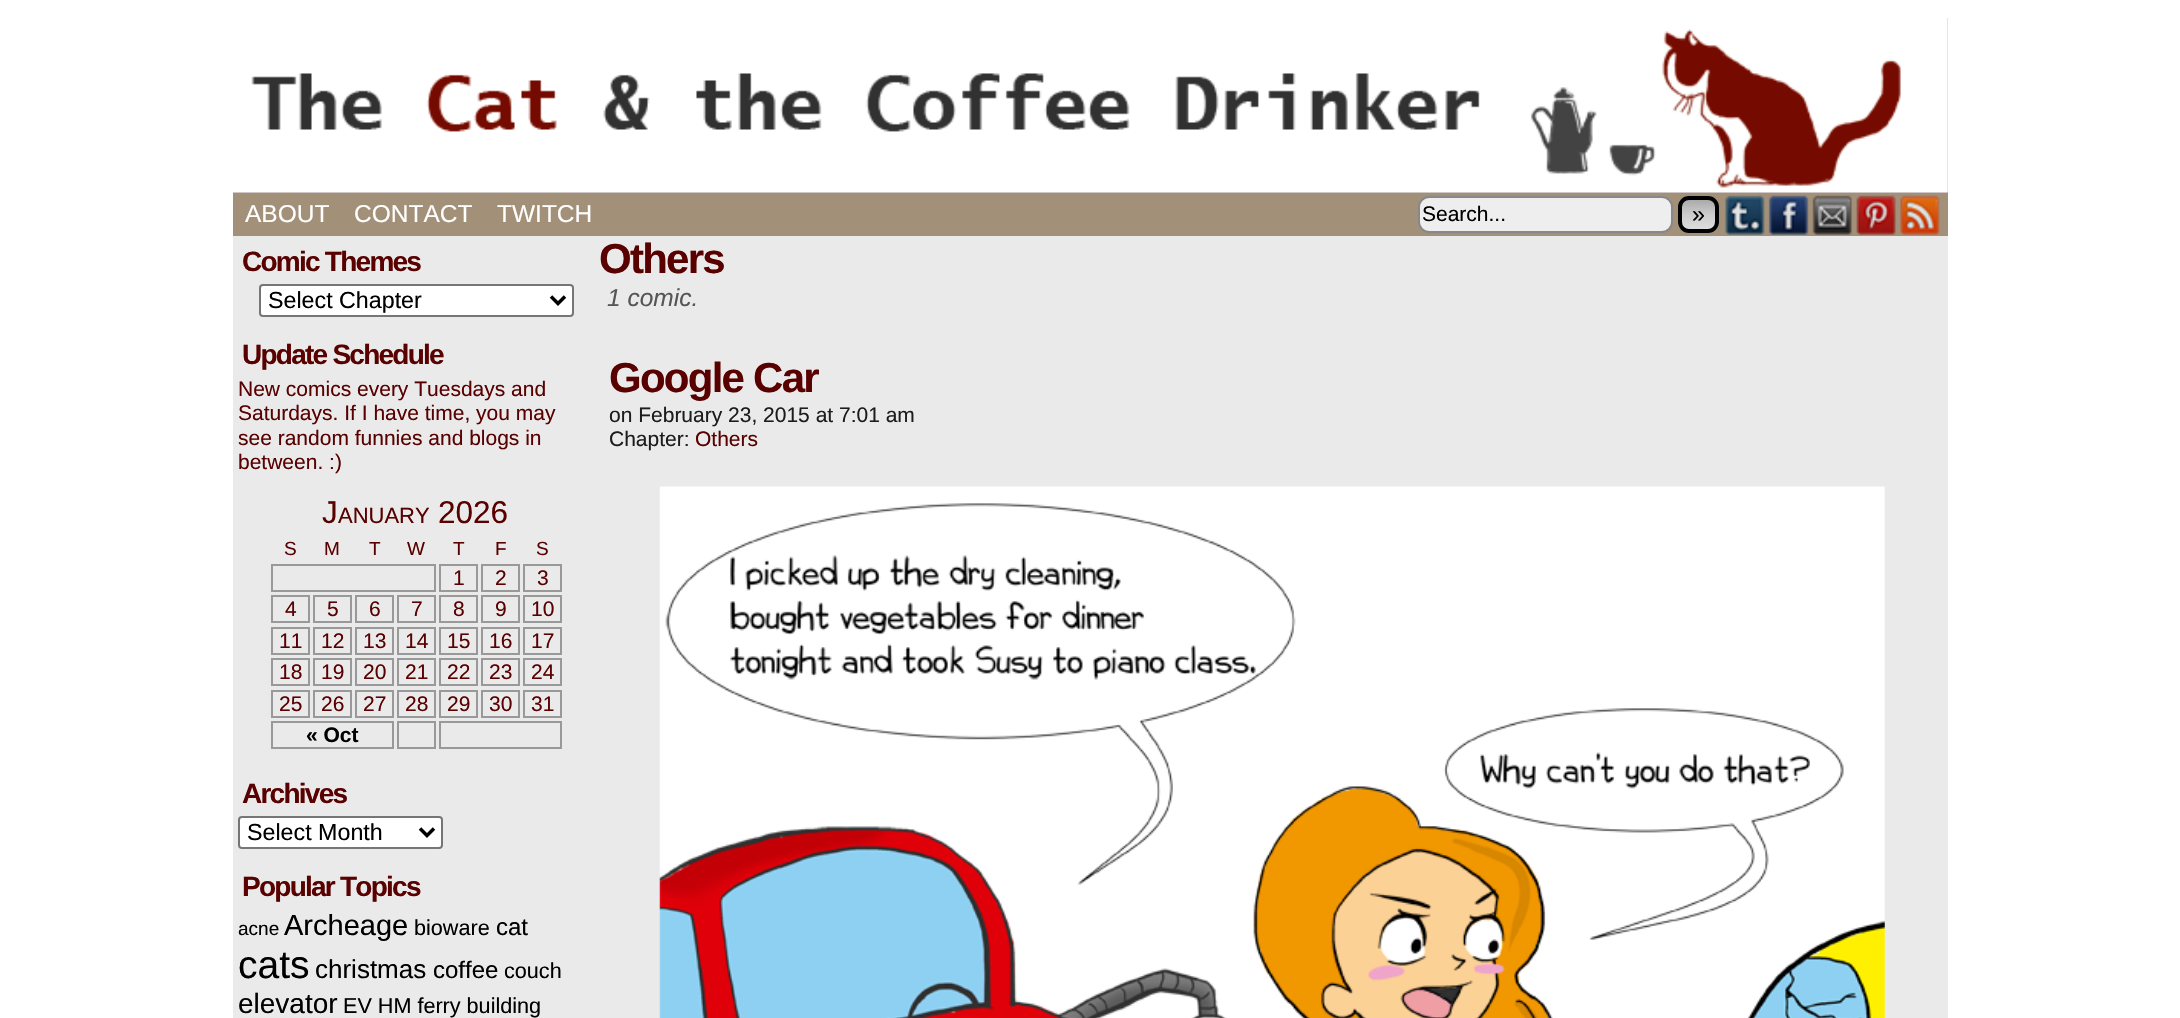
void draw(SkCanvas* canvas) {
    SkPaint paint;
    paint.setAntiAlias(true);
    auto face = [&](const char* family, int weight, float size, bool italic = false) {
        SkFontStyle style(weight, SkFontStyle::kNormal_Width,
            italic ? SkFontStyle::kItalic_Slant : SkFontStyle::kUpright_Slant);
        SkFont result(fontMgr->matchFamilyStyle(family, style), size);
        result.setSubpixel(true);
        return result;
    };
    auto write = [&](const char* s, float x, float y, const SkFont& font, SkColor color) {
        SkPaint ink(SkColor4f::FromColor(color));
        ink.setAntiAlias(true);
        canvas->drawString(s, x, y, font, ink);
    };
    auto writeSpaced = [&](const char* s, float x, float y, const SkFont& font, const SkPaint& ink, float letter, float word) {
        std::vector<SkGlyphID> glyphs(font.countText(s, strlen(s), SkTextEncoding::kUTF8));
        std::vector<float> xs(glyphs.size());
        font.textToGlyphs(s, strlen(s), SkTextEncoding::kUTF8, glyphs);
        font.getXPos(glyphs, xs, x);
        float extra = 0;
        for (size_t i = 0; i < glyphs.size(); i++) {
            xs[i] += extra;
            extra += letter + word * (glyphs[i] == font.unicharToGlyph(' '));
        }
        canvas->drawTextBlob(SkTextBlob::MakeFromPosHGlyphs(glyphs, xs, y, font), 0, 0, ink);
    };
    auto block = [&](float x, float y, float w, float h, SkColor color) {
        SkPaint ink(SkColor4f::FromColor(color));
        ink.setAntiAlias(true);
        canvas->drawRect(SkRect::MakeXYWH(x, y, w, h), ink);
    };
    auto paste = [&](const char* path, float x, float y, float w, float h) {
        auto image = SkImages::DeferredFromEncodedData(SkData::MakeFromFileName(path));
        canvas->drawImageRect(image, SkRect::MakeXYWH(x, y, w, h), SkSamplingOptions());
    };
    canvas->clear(SK_ColorWHITE);
    block(233, 236, 1715, 782, SkColorSetRGB(234, 234, 234));
    block(233, 18, 1715, 175, SkColorSetRGB(158, 145, 140));
    paste("pic1.png", 233, 18, 1715, 175);
    block(233, 193, 1715, 43, SkColorSetRGB(163, 144, 120));
    auto kFont1 = face("Liberation Sans", 400, 24.5f);
    write("ABOUT", 245, 222, kFont1, SK_ColorWHITE);
    write("CONTACT", 354, 222, kFont1, SK_ColorWHITE);
    write("TWITCH", 497, 222, kFont1, SK_ColorWHITE);
    paint.setColor(SkColorSetRGB(238, 238, 238));
    canvas->drawRoundRect(SkRect::MakeXYWH(1419, 197, 253, 35), 10, 10, paint);
    paint.setStyle(SkPaint::kStroke_Style);
    paint.setStrokeWidth(2);
    paint.setColor(SkColorSetRGB(136, 136, 136));
    canvas->drawRoundRect(SkRect::MakeXYWH(1419, 197, 253, 35), 10, 10, paint);
    auto kFont2 = face("Liberation Sans", 400, 21);
    write("Search...", 1422, 221, kFont2, SK_ColorBLACK);
    canvas->save();
    canvas->clipPath(SkPathBuilder().moveTo(1689, 196).lineTo(1708, 196).cubicTo(1714, 196, 1719, 201, 1719, 207).lineTo(1719, 222).cubicTo(1719, 228, 1714, 233, 1708, 233).lineTo(1689, 233).cubicTo(1683, 233, 1678, 228, 1678, 222).lineTo(1678, 207).cubicTo(1678, 201, 1683, 196, 1689, 196).close().detach(), true);
    paint.setStyle(SkPaint::kFill_Style);
    {
        const SkColor colors[] = {SkColorSetRGB(170, 170, 170), SkColorSetRGB(204, 204, 204), SkColorSetRGB(221, 221, 221)};
        const float stops[] = {0, 0.5f, 1};
        const SkPoint ends[] = {{1698, 200}, {1698, 229}};
        paint.setShader(SkGradientShader::MakeLinear(ends, colors, stops, 3, SkTileMode::kClamp));
        paint.setAlpha(255);
    }
    canvas->drawRect(SkRect::MakeXYWH(1678, 200, 41, 29), paint);
    canvas->restore();
    paint.setStyle(SkPaint::kStroke_Style);
    paint.setStrokeWidth(4);
    paint.setShader(nullptr);
    paint.setColor(SK_ColorBLACK);
    canvas->drawRoundRect(SkRect::MakeXYWH(1680, 198, 37, 33), 9, 9, paint);
    auto kFont3 = face("Liberation Sans", 400, 23.25f);
    write("»", 1692, 222, kFont3, SK_ColorBLACK);
    paste("pic2.png", 1725, 195, 40, 40);
    paste("pic3.png", 1768, 195, 41, 40);
    paste("pic4.png", 1812, 195, 40, 40);
    paste("pic5.png", 1856, 195, 40, 40);
    paste("pic6.png", 1900, 195, 40, 40);
    auto kFont4 = face("Liberation Sans", 700, 28);
    paint.setStyle(SkPaint::kFill_Style);
    paint.setColor(SkColorSetRGB(89, 0, 0));
    writeSpaced("Comic Themes", 242, 271, kFont4, paint, -1.75f, 0);
    paint.setColor(SK_ColorWHITE);
    canvas->drawRoundRect(SkRect::MakeXYWH(260, 285, 313, 31), 3, 3, paint);
    paint.setStyle(SkPaint::kStroke_Style);
    paint.setStrokeWidth(2);
    paint.setColor(SkColorSetRGB(118, 118, 118));
    canvas->drawRoundRect(SkRect::MakeXYWH(260, 285, 313, 31), 3, 3, paint);
    paint.setStrokeWidth(3.5f);
    paint.setColor(SK_ColorBLACK);
    canvas->drawPath(SkPathBuilder().moveTo(551, 296.5f).lineTo(558, 303.5f).lineTo(565, 296.5f).detach(), paint);
    write("Select Chapter", 268, 308, kFont3, SK_ColorBLACK);
    paint.setStyle(SkPaint::kFill_Style);
    paint.setColor(SkColorSetRGB(89, 0, 0));
    writeSpaced("Update Schedule", 242, 364, kFont4, paint, -1.75f, 0);
    write("New comics every Tuesdays and", 238, 396, kFont2, SkColorSetRGB(89, 0, 0));
    write("Saturdays. If I have time, you may", 238, 420, kFont2, SkColorSetRGB(89, 0, 0));
    write("see random funnies and blogs in", 238, 445, kFont2, SkColorSetRGB(89, 0, 0));
    write("between. :)", 238, 469, kFont2, SkColorSetRGB(89, 0, 0));
    auto kFont5 = face("Liberation Sans", 400, 31.5f);
    write("J", 322, 523, kFont5, SkColorSetRGB(89, 0, 0));
    auto kFont6 = face("Liberation Sans", 400, 22);
    write("ANUARY", 338, 523, kFont6, SkColorSetRGB(89, 0, 0));
    write("2026", 438, 523, kFont5, SkColorSetRGB(89, 0, 0));
    auto kFont7 = face("Liberation Sans", 400, 19);
    write("S", 284, 555, kFont7, SkColorSetRGB(89, 0, 0));
    write("M", 324, 555, kFont7, SkColorSetRGB(89, 0, 0));
    write("T", 369, 555, kFont7, SkColorSetRGB(89, 0, 0));
    write("W", 407, 555, kFont7, SkColorSetRGB(89, 0, 0));
    write("T", 453, 555, kFont7, SkColorSetRGB(89, 0, 0));
    write("F", 495, 555, kFont7, SkColorSetRGB(89, 0, 0));
    write("S", 536, 555, kFont7, SkColorSetRGB(89, 0, 0));
    paint.setStyle(SkPaint::kStroke_Style);
    paint.setStrokeWidth(2);
    paint.setColor(SkColorSetRGB(153, 153, 153));
    canvas->drawRect(SkRect::MakeXYWH(272, 565, 163, 26), paint);
    canvas->drawRect(SkRect::MakeXYWH(440, 565, 37, 26), paint);
    write("1", 453, 585, kFont2, SkColorSetRGB(89, 0, 0));
    canvas->drawRect(SkRect::MakeXYWH(482, 565, 37, 26), paint);
    write("2", 495, 585, kFont2, SkColorSetRGB(89, 0, 0));
    canvas->drawRect(SkRect::MakeXYWH(524, 565, 37, 26), paint);
    write("3", 537, 585, kFont2, SkColorSetRGB(89, 0, 0));
    canvas->drawRect(SkRect::MakeXYWH(272, 596, 37, 26), paint);
    write("4", 285, 616, kFont2, SkColorSetRGB(89, 0, 0));
    canvas->drawRect(SkRect::MakeXYWH(314, 596, 37, 26), paint);
    write("5", 327, 616, kFont2, SkColorSetRGB(89, 0, 0));
    canvas->drawRect(SkRect::MakeXYWH(356, 596, 37, 26), paint);
    write("6", 369, 616, kFont2, SkColorSetRGB(89, 0, 0));
    canvas->drawRect(SkRect::MakeXYWH(398, 596, 37, 26), paint);
    write("7", 411, 616, kFont2, SkColorSetRGB(89, 0, 0));
    canvas->drawRect(SkRect::MakeXYWH(440, 596, 37, 26), paint);
    write("8", 453, 616, kFont2, SkColorSetRGB(89, 0, 0));
    canvas->drawRect(SkRect::MakeXYWH(482, 596, 37, 26), paint);
    write("9", 495, 616, kFont2, SkColorSetRGB(89, 0, 0));
    canvas->drawRect(SkRect::MakeXYWH(524, 596, 37, 26), paint);
    write("10", 531, 616, kFont2, SkColorSetRGB(89, 0, 0));
    canvas->drawRect(SkRect::MakeXYWH(272, 628, 37, 26), paint);
    write("11", 279, 648, kFont2, SkColorSetRGB(89, 0, 0));
    canvas->drawRect(SkRect::MakeXYWH(314, 628, 37, 26), paint);
    write("12", 321, 648, kFont2, SkColorSetRGB(89, 0, 0));
    canvas->drawRect(SkRect::MakeXYWH(356, 628, 37, 26), paint);
    write("13", 363, 648, kFont2, SkColorSetRGB(89, 0, 0));
    canvas->drawRect(SkRect::MakeXYWH(398, 628, 37, 26), paint);
    write("14", 405, 648, kFont2, SkColorSetRGB(89, 0, 0));
    canvas->drawRect(SkRect::MakeXYWH(440, 628, 37, 26), paint);
    write("15", 447, 648, kFont2, SkColorSetRGB(89, 0, 0));
    canvas->drawRect(SkRect::MakeXYWH(482, 628, 37, 26), paint);
    write("16", 489, 648, kFont2, SkColorSetRGB(89, 0, 0));
    canvas->drawRect(SkRect::MakeXYWH(524, 628, 37, 26), paint);
    write("17", 531, 648, kFont2, SkColorSetRGB(89, 0, 0));
    canvas->drawRect(SkRect::MakeXYWH(272, 659, 37, 26), paint);
    write("18", 279, 679, kFont2, SkColorSetRGB(89, 0, 0));
    canvas->drawRect(SkRect::MakeXYWH(314, 659, 37, 26), paint);
    write("19", 321, 679, kFont2, SkColorSetRGB(89, 0, 0));
    canvas->drawRect(SkRect::MakeXYWH(356, 659, 37, 26), paint);
    write("20", 363, 679, kFont2, SkColorSetRGB(89, 0, 0));
    canvas->drawRect(SkRect::MakeXYWH(398, 659, 37, 26), paint);
    write("21", 405, 679, kFont2, SkColorSetRGB(89, 0, 0));
    canvas->drawRect(SkRect::MakeXYWH(440, 659, 37, 26), paint);
    write("22", 447, 679, kFont2, SkColorSetRGB(89, 0, 0));
    canvas->drawRect(SkRect::MakeXYWH(482, 659, 37, 26), paint);
    write("23", 489, 679, kFont2, SkColorSetRGB(89, 0, 0));
    canvas->drawRect(SkRect::MakeXYWH(524, 659, 37, 26), paint);
    write("24", 531, 679, kFont2, SkColorSetRGB(89, 0, 0));
    canvas->drawRect(SkRect::MakeXYWH(272, 691, 37, 26), paint);
    write("25", 279, 711, kFont2, SkColorSetRGB(89, 0, 0));
    canvas->drawRect(SkRect::MakeXYWH(314, 691, 37, 26), paint);
    write("26", 321, 711, kFont2, SkColorSetRGB(89, 0, 0));
    canvas->drawRect(SkRect::MakeXYWH(356, 691, 37, 26), paint);
    write("27", 363, 711, kFont2, SkColorSetRGB(89, 0, 0));
    canvas->drawRect(SkRect::MakeXYWH(398, 691, 37, 26), paint);
    write("28", 405, 711, kFont2, SkColorSetRGB(89, 0, 0));
    canvas->drawRect(SkRect::MakeXYWH(440, 691, 37, 26), paint);
    write("29", 447, 711, kFont2, SkColorSetRGB(89, 0, 0));
    canvas->drawRect(SkRect::MakeXYWH(482, 691, 37, 26), paint);
    write("30", 489, 711, kFont2, SkColorSetRGB(89, 0, 0));
    canvas->drawRect(SkRect::MakeXYWH(524, 691, 37, 26), paint);
    write("31", 531, 711, kFont2, SkColorSetRGB(89, 0, 0));
    canvas->drawRect(SkRect::MakeXYWH(272, 722, 121, 26), paint);
    auto kFont8 = face("Liberation Sans", 700, 21);
    write("« Oct", 306, 742, kFont8, SK_ColorBLACK);
    canvas->drawRect(SkRect::MakeXYWH(398, 722, 37, 26), paint);
    canvas->drawRect(SkRect::MakeXYWH(440, 722, 121, 26), paint);
    paint.setStyle(SkPaint::kFill_Style);
    paint.setColor(SkColorSetRGB(89, 0, 0));
    writeSpaced("Archives", 242, 803, kFont4, paint, -1.75f, 0);
    paint.setColor(SK_ColorWHITE);
    canvas->drawRoundRect(SkRect::MakeXYWH(239, 817, 203, 31), 3, 3, paint);
    paint.setStyle(SkPaint::kStroke_Style);
    paint.setColor(SkColorSetRGB(118, 118, 118));
    canvas->drawRoundRect(SkRect::MakeXYWH(239, 817, 203, 31), 3, 3, paint);
    paint.setStrokeWidth(3.5f);
    paint.setColor(SK_ColorBLACK);
    canvas->drawPath(SkPathBuilder().moveTo(420, 828.5f).lineTo(427, 835.5f).lineTo(434, 828.5f).detach(), paint);
    write("Select Month", 247, 840, kFont3, SK_ColorBLACK);
    paint.setStyle(SkPaint::kFill_Style);
    paint.setColor(SkColorSetRGB(89, 0, 0));
    writeSpaced("Popular Topics", 242, 896, kFont4, paint, -1.75f, 0);
    write("acne", 238, 935, kFont7, SK_ColorBLACK);
    auto kFont9 = face("Liberation Sans", 400, 29);
    write("Archeage", 284, 935, kFont9, SK_ColorBLACK);
    auto kFont10 = face("Liberation Sans", 400, 21.6f);
    write("bioware", 414, 935, kFont10, SK_ColorBLACK);
    auto kFont11 = face("Liberation Sans", 400, 24);
    write("cat", 496, 935, kFont11, SK_ColorBLACK);
    auto kFont12 = face("Liberation Sans", 400, 39);
    write("cats", 238, 978, kFont12, SK_ColorBLACK);
    auto kFont13 = face("Liberation Sans", 400, 26);
    write("christmas", 315, 978, kFont13, SK_ColorBLACK);
    write("coffee", 433, 978, kFont11, SK_ColorBLACK);
    write("couch", 504, 978, kFont10, SK_ColorBLACK);
    auto kFont14 = face("Liberation Sans", 400, 28);
    write("elevator", 238, 1013, kFont14, SK_ColorBLACK);
    write("EV HM ferry building", 343, 1013, kFont10, SK_ColorBLACK);
    auto kFont15 = face("Liberation Sans", 700, 42);
    writeSpaced("Others", 599, 273, kFont15, paint, -1.75f, 0);
    auto kFont16 = face("Liberation Sans", 400, 24.5f, true);
    write("1 comic.", 607, 306, kFont16, SkColorSetRGB(86, 86, 86));
    writeSpaced("Google Car", 609, 392, kFont15, paint, -1.75f, 0);
    write("on February 23, 2015 at 7:01 am", 609, 422, kFont2, SkColorSetRGB(28, 28, 28));
    write("Chapter:", 609, 446, kFont2, SkColorSetRGB(28, 28, 28));
    write("Others", 695, 446, kFont2, SkColorSetRGB(89, 0, 0));
    paste("pic7.png", 659, 486, 1226, 532);
}
